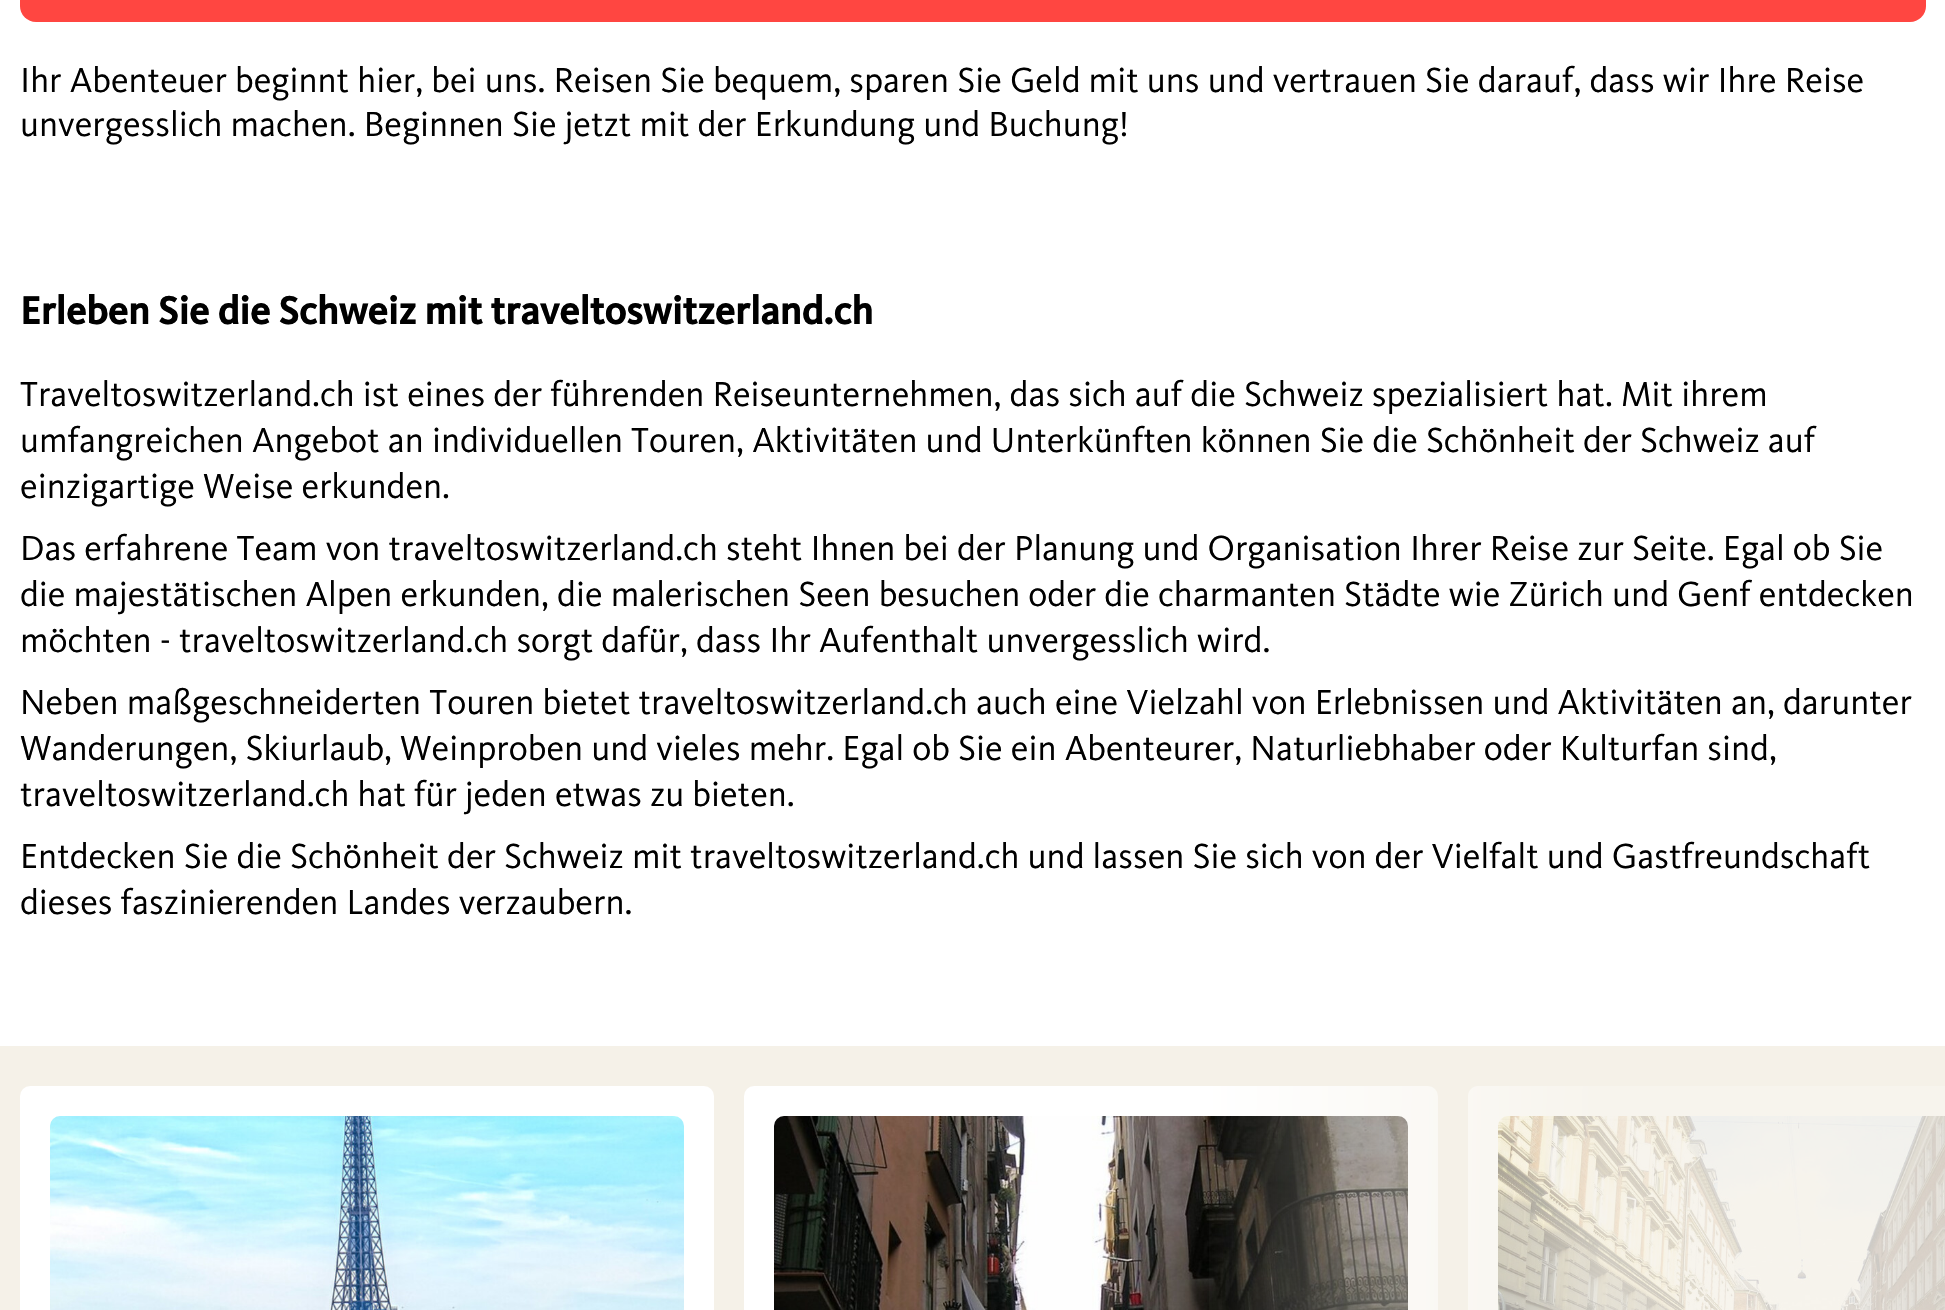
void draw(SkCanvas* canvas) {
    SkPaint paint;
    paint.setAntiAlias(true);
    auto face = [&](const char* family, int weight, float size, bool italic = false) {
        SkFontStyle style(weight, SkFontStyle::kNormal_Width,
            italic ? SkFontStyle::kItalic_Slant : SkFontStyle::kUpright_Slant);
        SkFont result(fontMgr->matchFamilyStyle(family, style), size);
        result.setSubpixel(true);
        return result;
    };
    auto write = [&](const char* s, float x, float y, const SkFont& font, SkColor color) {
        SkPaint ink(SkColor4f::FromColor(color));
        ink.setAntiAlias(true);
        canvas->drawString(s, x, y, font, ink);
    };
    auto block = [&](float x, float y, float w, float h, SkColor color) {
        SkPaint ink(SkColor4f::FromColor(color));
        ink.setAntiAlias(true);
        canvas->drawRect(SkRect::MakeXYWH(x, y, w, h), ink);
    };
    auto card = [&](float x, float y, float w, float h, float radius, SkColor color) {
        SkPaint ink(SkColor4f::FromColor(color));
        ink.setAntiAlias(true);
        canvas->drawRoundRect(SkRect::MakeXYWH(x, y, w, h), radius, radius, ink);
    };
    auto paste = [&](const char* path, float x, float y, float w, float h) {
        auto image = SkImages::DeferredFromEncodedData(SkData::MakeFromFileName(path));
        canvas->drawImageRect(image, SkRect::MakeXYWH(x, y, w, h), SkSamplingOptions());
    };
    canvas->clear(SK_ColorWHITE);
    card(20, -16, 1906, 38, 16, SkColorSetRGB(255, 70, 65));
    auto kFont1 = face("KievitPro", 400, 36);
    write("Ihr Abenteuer beginnt hier, bei uns. Reisen Sie bequem, sparen Sie Geld mit uns und vertrauen Sie darauf, dass wir Ihre Reise", 20, 92, kFont1, SK_ColorBLACK);
    write("unvergesslich machen. Beginnen Sie jetzt mit der Erkundung und Buchung!", 20, 136, kFont1, SK_ColorBLACK);
    auto kFont2 = face("KievitPro", 700, 40);
    write("Erleben Sie die Schweiz mit traveltoswitzerland.ch", 20, 324, kFont2, SK_ColorBLACK);
    write("Traveltoswitzerland.ch ist eines der führenden Reiseunternehmen, das sich auf die Schweiz spezialisiert hat. Mit ihrem", 20, 406, kFont1, SK_ColorBLACK);
    write("umfangreichen Angebot an individuellen Touren, Aktivitäten und Unterkünften können Sie die Schönheit der Schweiz auf", 20, 452, kFont1, SK_ColorBLACK);
    write("einzigartige Weise erkunden.", 20, 498, kFont1, SK_ColorBLACK);
    write("Das erfahrene Team von traveltoswitzerland.ch steht Ihnen bei der Planung und Organisation Ihrer Reise zur Seite. Egal ob Sie", 20, 560, kFont1, SK_ColorBLACK);
    write("die majestätischen Alpen erkunden, die malerischen Seen besuchen oder die charmanten Städte wie Zürich und Genf entdecken", 20, 606, kFont1, SK_ColorBLACK);
    write("möchten - traveltoswitzerland.ch sorgt dafür, dass Ihr Aufenthalt unvergesslich wird.", 20, 652, kFont1, SK_ColorBLACK);
    write("Neben maßgeschneiderten Touren bietet traveltoswitzerland.ch auch eine Vielzahl von Erlebnissen und Aktivitäten an, darunter", 20, 714, kFont1, SK_ColorBLACK);
    write("Wanderungen, Skiurlaub, Weinproben und vieles mehr. Egal ob Sie ein Abenteurer, Naturliebhaber oder Kulturfan sind,", 20, 760, kFont1, SK_ColorBLACK);
    write("traveltoswitzerland.ch hat für jeden etwas zu bieten.", 20, 806, kFont1, SK_ColorBLACK);
    write("Entdecken Sie die Schönheit der Schweiz mit traveltoswitzerland.ch und lassen Sie sich von der Vielfalt und Gastfreundschaft", 20, 868, kFont1, SK_ColorBLACK);
    write("dieses faszinierenden Landes verzaubern.", 20, 914, kFont1, SK_ColorBLACK);
    block(0, 1046, 1945, 264, SkColorSetRGB(245, 241, 232));
    card(20, 1086, 694, 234, 10, SK_ColorWHITE);
    paste("pic1.png", 50, 1116, 634, 194);
    card(744, 1086, 694, 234, 10, SK_ColorWHITE);
    paste("pic2.png", 774, 1116, 634, 194);
    paint.setColor(SK_ColorWHITE);
    canvas->drawPath(SkPathBuilder().moveTo(1478, 1086).lineTo(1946, 1086).lineTo(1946, 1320).lineTo(1478, 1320).cubicTo(1472.5f, 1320, 1468, 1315.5f, 1468, 1310).lineTo(1468, 1096).cubicTo(1468, 1090.5f, 1472.5f, 1086, 1478, 1086).close().detach(), paint);
    paste("pic3.png", 1498, 1116, 447, 194);
    {
        const SkColor colors[] = {SkColorSetARGB(204, 245, 241, 232), SkColorSetARGB(0, 245, 241, 232)};
        const float stops[] = {0.46f, 0.99f};
        const SkPoint ends[] = {{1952, 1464}, {1188, 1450}};
        paint.setShader(SkGradientShader::MakeLinear(ends, colors, stops, 2, SkTileMode::kClamp));
        paint.setAlpha(255);
    }
    canvas->drawRect(SkRect::MakeXYWH(1209, 1086, 736, 224), paint);
}
